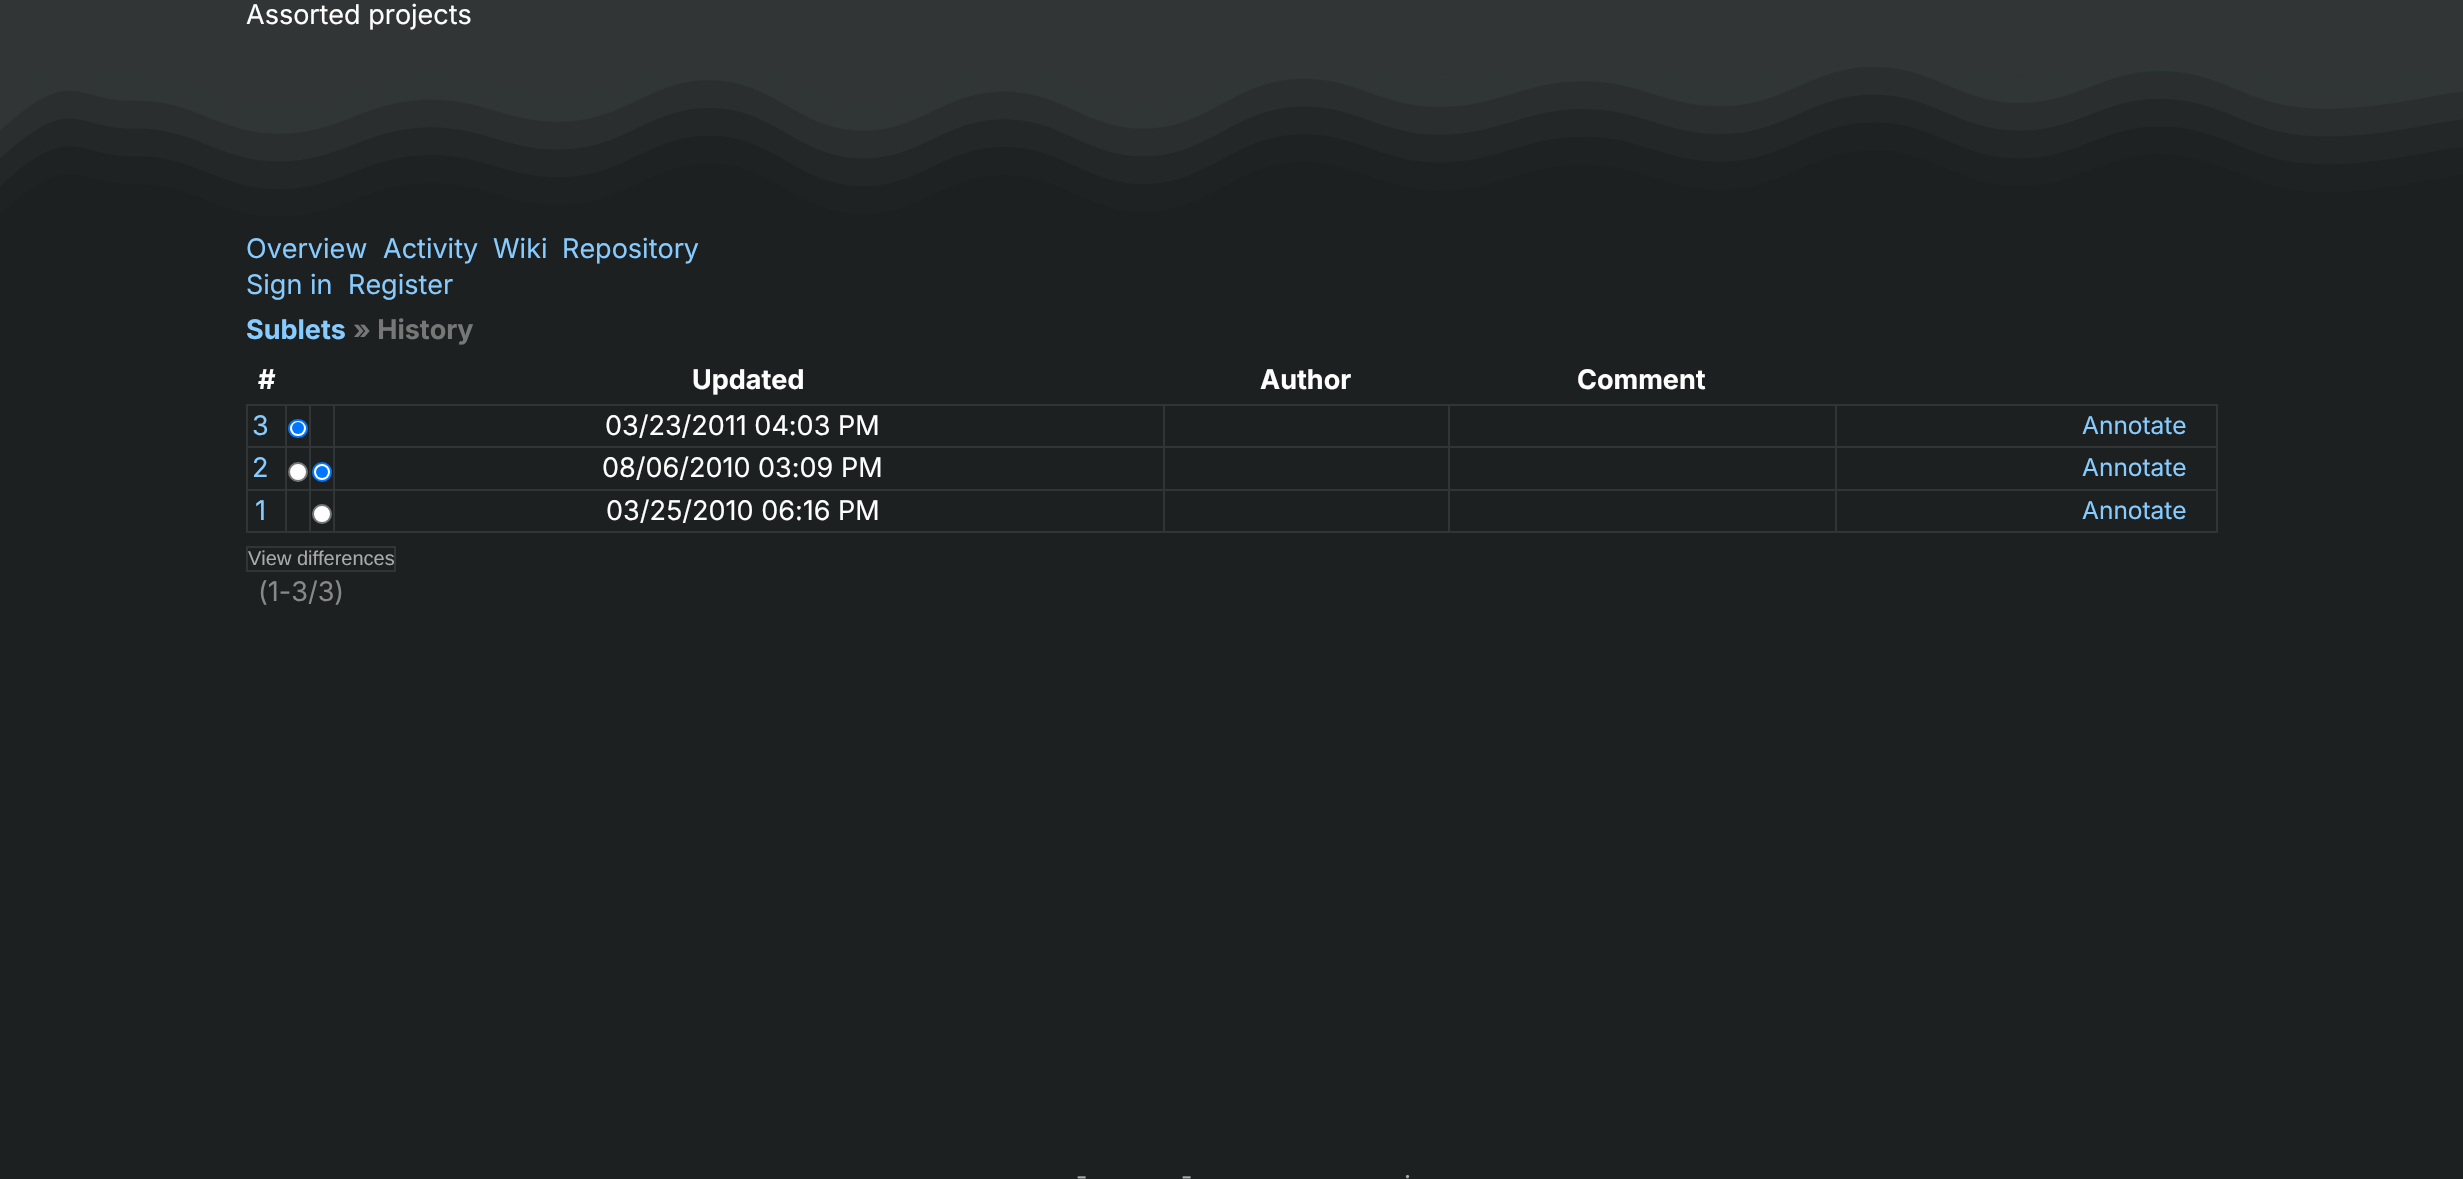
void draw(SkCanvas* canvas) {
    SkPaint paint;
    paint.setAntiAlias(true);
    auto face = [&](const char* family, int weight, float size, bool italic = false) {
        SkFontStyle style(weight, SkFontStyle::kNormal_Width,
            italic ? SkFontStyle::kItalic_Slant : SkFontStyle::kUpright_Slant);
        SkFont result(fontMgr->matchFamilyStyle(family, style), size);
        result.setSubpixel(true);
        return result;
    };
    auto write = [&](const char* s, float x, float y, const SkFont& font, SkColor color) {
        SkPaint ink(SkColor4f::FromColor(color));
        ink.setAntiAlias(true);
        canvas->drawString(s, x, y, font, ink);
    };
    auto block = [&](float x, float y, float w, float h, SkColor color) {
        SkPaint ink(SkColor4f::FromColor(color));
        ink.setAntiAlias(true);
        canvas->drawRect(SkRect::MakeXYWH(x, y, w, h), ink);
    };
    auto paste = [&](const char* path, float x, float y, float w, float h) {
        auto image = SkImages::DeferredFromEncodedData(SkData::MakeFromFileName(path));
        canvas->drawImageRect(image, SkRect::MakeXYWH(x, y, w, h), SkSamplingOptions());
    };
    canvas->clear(SkColorSetRGB(29, 32, 33));
    block(0, 0, 2463, 216, SkColorSetRGB(49, 53, 54));
    auto kFont1 = face("Inter", 400, 27);
    write("Assorted projects", 246, 24, kFont1, SK_ColorWHITE);
    paste("pic1.png", 0, 67, 2463, 149);
    write("Overview", 246, 258, kFont1, SkColorSetRGB(136, 204, 255));
    write("Activity", 383, 258, kFont1, SkColorSetRGB(136, 204, 255));
    write("Wiki", 493, 258, kFont1, SkColorSetRGB(136, 204, 255));
    write("Repository", 562, 258, kFont1, SkColorSetRGB(136, 204, 255));
    write("Sign in", 246, 294, kFont1, SkColorSetRGB(136, 204, 255));
    write("Register", 348, 294, kFont1, SkColorSetRGB(136, 204, 255));
    auto kFont2 = face("Inter", 700, 27);
    write("Sublets", 246, 339, kFont2, SkColorSetRGB(136, 204, 255));
    write("» History", 353, 339, kFont2, SkColorSetRGB(119, 119, 119));
    write("#", 258, 389, kFont2, SK_ColorWHITE);
    write("Updated", 692, 389, kFont2, SK_ColorWHITE);
    write("Author", 1260, 389, kFont2, SK_ColorWHITE);
    write("Comment", 1577, 389, kFont2, SK_ColorWHITE);
    block(1835, 404, 382, 2, SkColorSetRGB(49, 53, 54));
    block(1835, 446, 382, 2, SkColorSetRGB(49, 53, 54));
    block(1835, 489, 382, 2, SkColorSetRGB(49, 53, 54));
    block(2216, 489, 2, 44, SkColorSetRGB(49, 53, 54));
    block(1835, 531, 382, 2, SkColorSetRGB(49, 53, 54));
    block(1835, 489, 2, 44, SkColorSetRGB(49, 53, 54));
    block(1448, 489, 388, 2, SkColorSetRGB(49, 53, 54));
    block(1835, 446, 2, 45, SkColorSetRGB(49, 53, 54));
    block(1448, 446, 388, 2, SkColorSetRGB(49, 53, 54));
    block(1835, 404, 2, 43, SkColorSetRGB(49, 53, 54));
    block(1448, 404, 388, 2, SkColorSetRGB(49, 53, 54));
    block(1448, 531, 388, 2, SkColorSetRGB(49, 53, 54));
    block(1448, 489, 2, 44, SkColorSetRGB(49, 53, 54));
    block(1163, 489, 286, 2, SkColorSetRGB(49, 53, 54));
    block(1448, 446, 2, 45, SkColorSetRGB(49, 53, 54));
    block(1163, 446, 286, 2, SkColorSetRGB(49, 53, 54));
    block(1448, 404, 2, 43, SkColorSetRGB(49, 53, 54));
    block(1163, 404, 286, 2, SkColorSetRGB(49, 53, 54));
    block(1163, 531, 286, 2, SkColorSetRGB(49, 53, 54));
    block(1163, 489, 2, 44, SkColorSetRGB(49, 53, 54));
    block(333, 489, 831, 2, SkColorSetRGB(49, 53, 54));
    block(1163, 446, 2, 45, SkColorSetRGB(49, 53, 54));
    block(333, 446, 831, 2, SkColorSetRGB(49, 53, 54));
    block(1163, 404, 2, 43, SkColorSetRGB(49, 53, 54));
    block(333, 404, 831, 2, SkColorSetRGB(49, 53, 54));
    block(333, 531, 831, 2, SkColorSetRGB(49, 53, 54));
    block(333, 489, 2, 44, SkColorSetRGB(49, 53, 54));
    block(309, 489, 26, 2, SkColorSetRGB(49, 53, 54));
    block(333, 446, 2, 45, SkColorSetRGB(49, 53, 54));
    block(309, 446, 26, 2, SkColorSetRGB(49, 53, 54));
    block(333, 404, 2, 43, SkColorSetRGB(49, 53, 54));
    block(309, 404, 26, 2, SkColorSetRGB(49, 53, 54));
    block(309, 531, 26, 2, SkColorSetRGB(49, 53, 54));
    block(309, 489, 2, 44, SkColorSetRGB(49, 53, 54));
    block(285, 489, 26, 2, SkColorSetRGB(49, 53, 54));
    block(309, 446, 2, 45, SkColorSetRGB(49, 53, 54));
    block(285, 446, 26, 2, SkColorSetRGB(49, 53, 54));
    block(309, 404, 2, 43, SkColorSetRGB(49, 53, 54));
    block(285, 404, 26, 2, SkColorSetRGB(49, 53, 54));
    block(285, 531, 26, 2, SkColorSetRGB(49, 53, 54));
    block(285, 489, 2, 44, SkColorSetRGB(49, 53, 54));
    block(246, 489, 41, 2, SkColorSetRGB(49, 53, 54));
    block(285, 446, 2, 45, SkColorSetRGB(49, 53, 54));
    block(246, 446, 41, 2, SkColorSetRGB(49, 53, 54));
    block(285, 404, 2, 43, SkColorSetRGB(49, 53, 54));
    block(246, 404, 41, 2, SkColorSetRGB(49, 53, 54));
    block(246, 531, 41, 2, SkColorSetRGB(49, 53, 54));
    block(246, 489, 2, 44, SkColorSetRGB(49, 53, 54));
    block(246, 446, 2, 45, SkColorSetRGB(49, 53, 54));
    block(246, 404, 2, 43, SkColorSetRGB(49, 53, 54));
    write("3", 252, 435, kFont1, SkColorSetRGB(136, 204, 255));
    paint.setColor(SK_ColorWHITE);
    canvas->drawRoundRect(SkRect::MakeXYWH(289, 420, 18, 17), 8.5f, 8.5f, paint);
    paint.setStyle(SkPaint::kStroke_Style);
    paint.setStrokeWidth(2);
    paint.setColor(SkColorSetRGB(0, 117, 255));
    canvas->drawRoundRect(SkRect::MakeXYWH(289, 420, 18, 17), 8.5f, 8.5f, paint);
    paint.setStyle(SkPaint::kFill_Style);
    canvas->drawCircle(298, 428, 6, paint);
    write("03/23/2011 04:03 PM", 605, 435, kFont1, SK_ColorWHITE);
    block(2216, 446, 2, 45, SkColorSetRGB(49, 53, 54));
    block(2216, 404, 2, 43, SkColorSetRGB(49, 53, 54));
    auto kFont3 = face("Inter", 400, 24.5f);
    write("Annotate", 2082, 434, kFont3, SkColorSetRGB(136, 204, 255));
    write("2", 252, 477, kFont1, SkColorSetRGB(136, 204, 255));
    paint.setColor(SK_ColorWHITE);
    canvas->drawCircle(298, 472, 9, paint);
    paint.setStyle(SkPaint::kStroke_Style);
    paint.setColor(SkColorSetRGB(118, 118, 118));
    canvas->drawCircle(298, 472, 9, paint);
    paint.setStyle(SkPaint::kFill_Style);
    paint.setColor(SK_ColorWHITE);
    canvas->drawCircle(322, 472, 9, paint);
    paint.setStyle(SkPaint::kStroke_Style);
    paint.setColor(SkColorSetRGB(0, 117, 255));
    canvas->drawCircle(322, 472, 9, paint);
    paint.setStyle(SkPaint::kFill_Style);
    canvas->drawCircle(322, 472, 6, paint);
    write("08/06/2010 03:09 PM", 602, 477, kFont1, SK_ColorWHITE);
    write("Annotate", 2082, 476, kFont3, SkColorSetRGB(136, 204, 255));
    write("1", 255, 520, kFont1, SkColorSetRGB(136, 204, 255));
    paint.setColor(SK_ColorWHITE);
    canvas->drawCircle(322, 514, 9, paint);
    paint.setStyle(SkPaint::kStroke_Style);
    paint.setColor(SkColorSetRGB(118, 118, 118));
    canvas->drawCircle(322, 514, 9, paint);
    write("03/25/2010 06:16 PM", 606, 520, kFont1, SK_ColorWHITE);
    write("Annotate", 2082, 519, kFont3, SkColorSetRGB(136, 204, 255));
    paint.setColor(SkColorSetRGB(49, 53, 54));
    canvas->drawRect(SkRect::MakeXYWH(247, 547, 148, 24), paint);
    auto kFont4 = face("Liberation Sans", 400, 20);
    write("View differences", 248, 565, kFont4, SkColorSetRGB(170, 170, 170));
    write("(1-3/3)", 258, 601, kFont1, SkColorSetRGB(136, 136, 136));
    write("-", 1076, 1185, kFont3, SkColorSetRGB(170, 170, 170));
    write("-", 1181, 1185, kFont3, SkColorSetRGB(170, 170, 170));
    write("·", 1404, 1185, kFont3, SkColorSetRGB(170, 170, 170));
}
